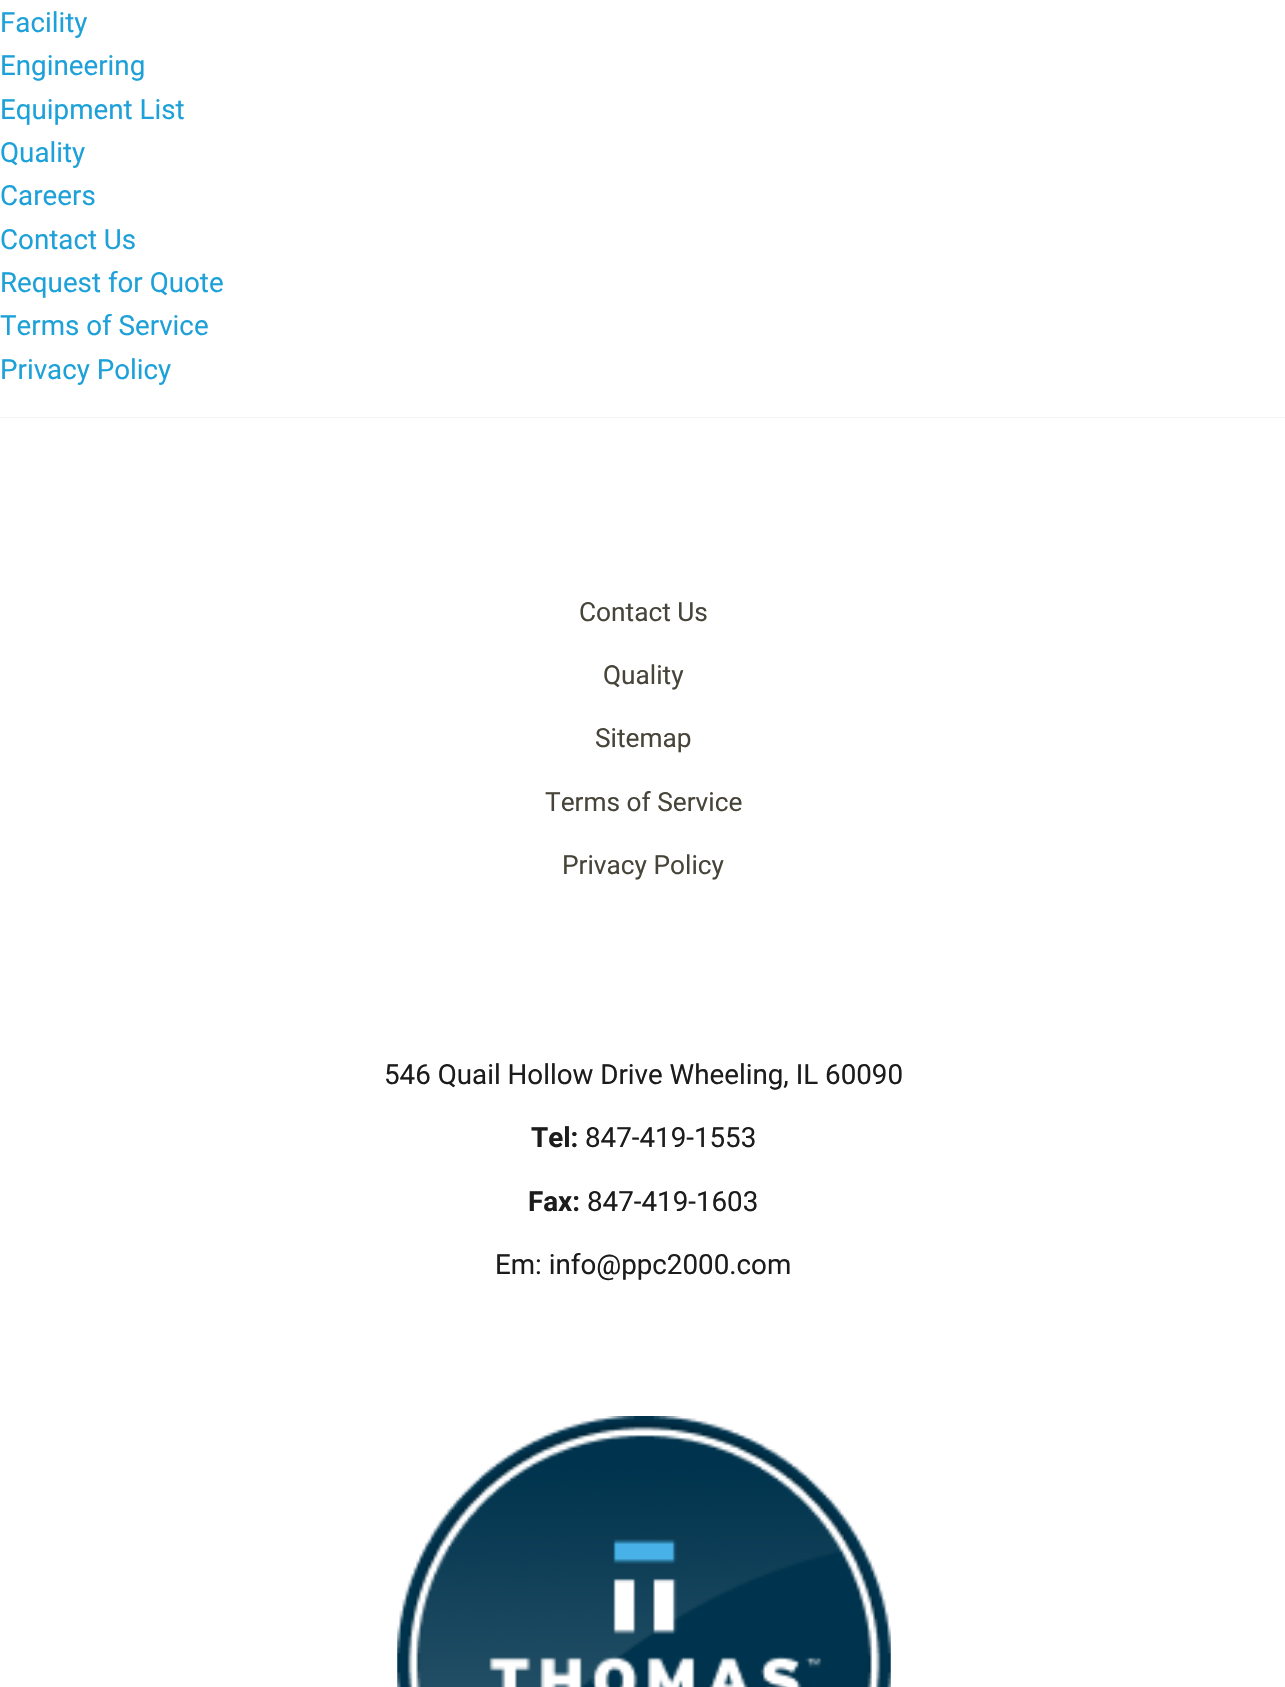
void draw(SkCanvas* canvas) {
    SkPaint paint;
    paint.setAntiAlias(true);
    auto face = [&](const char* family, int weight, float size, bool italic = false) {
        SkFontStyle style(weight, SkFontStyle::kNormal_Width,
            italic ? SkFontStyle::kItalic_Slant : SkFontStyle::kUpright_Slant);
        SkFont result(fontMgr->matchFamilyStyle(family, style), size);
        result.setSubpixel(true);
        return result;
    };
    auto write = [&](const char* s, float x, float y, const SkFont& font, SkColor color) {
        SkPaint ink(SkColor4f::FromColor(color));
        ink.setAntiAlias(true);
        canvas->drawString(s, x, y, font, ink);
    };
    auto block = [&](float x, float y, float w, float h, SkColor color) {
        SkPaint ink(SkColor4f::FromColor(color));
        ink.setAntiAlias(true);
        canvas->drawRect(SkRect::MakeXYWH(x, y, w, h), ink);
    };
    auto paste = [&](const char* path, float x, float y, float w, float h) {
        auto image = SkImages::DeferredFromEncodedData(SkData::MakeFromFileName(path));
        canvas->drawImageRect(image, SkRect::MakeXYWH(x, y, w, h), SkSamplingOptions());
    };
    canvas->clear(SK_ColorWHITE);
    auto kFont1 = face("Roboto", 400, 27.75f);
    write("Facility", 0, 32, kFont1, SkColorSetRGB(29, 161, 216));
    write("Engineering", 0, 75, kFont1, SkColorSetRGB(29, 161, 216));
    write("Equipment List", 0, 119, kFont1, SkColorSetRGB(29, 161, 216));
    write("Quality", 0, 162, kFont1, SkColorSetRGB(29, 161, 216));
    write("Careers", 0, 205, kFont1, SkColorSetRGB(29, 161, 216));
    write("Contact Us", 0, 249, kFont1, SkColorSetRGB(29, 161, 216));
    write("Request for Quote", 0, 292, kFont1, SkColorSetRGB(29, 161, 216));
    write("Terms of Service", 0, 335, kFont1, SkColorSetRGB(29, 161, 216));
    write("Privacy Policy", 0, 379, kFont1, SkColorSetRGB(29, 161, 216));
    block(0, 417, 1285, 1, SkColorSetRGB(245, 245, 245));
    auto kFont2 = face("Roboto", 400, 26.25f);
    write("Contact Us", 579, 621, kFont2, SkColorSetRGB(71, 69, 58));
    write("Quality", 603, 684, kFont2, SkColorSetRGB(71, 69, 58));
    write("Sitemap", 595, 747, kFont2, SkColorSetRGB(71, 69, 58));
    write("Terms of Service", 545, 811, kFont2, SkColorSetRGB(71, 69, 58));
    write("Privacy Policy", 562, 874, kFont2, SkColorSetRGB(71, 69, 58));
    write("546 Quail Hollow Drive Wheeling, IL 60090", 384, 1084, kFont1, SkColorSetRGB(28, 28, 28));
    auto kFont3 = face("Roboto", 700, 27.75f);
    write("Tel:", 531, 1147, kFont3, SkColorSetRGB(28, 28, 28));
    write("847-419-1553", 585, 1147, kFont1, SkColorSetRGB(28, 28, 28));
    write("Fax:", 528, 1211, kFont3, SkColorSetRGB(28, 28, 28));
    write("847-419-1603", 587, 1211, kFont1, SkColorSetRGB(28, 28, 28));
    write("Em: info@ppc2000.com", 495, 1274, kFont1, SkColorSetRGB(28, 28, 28));
    paste("pic1.png", 397, 1416, 494, 271);
}
